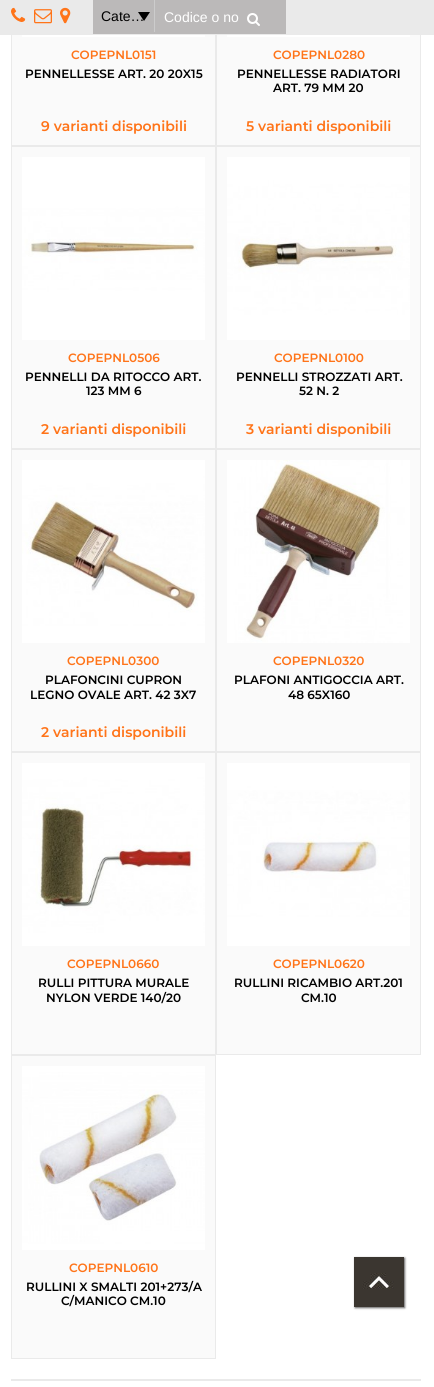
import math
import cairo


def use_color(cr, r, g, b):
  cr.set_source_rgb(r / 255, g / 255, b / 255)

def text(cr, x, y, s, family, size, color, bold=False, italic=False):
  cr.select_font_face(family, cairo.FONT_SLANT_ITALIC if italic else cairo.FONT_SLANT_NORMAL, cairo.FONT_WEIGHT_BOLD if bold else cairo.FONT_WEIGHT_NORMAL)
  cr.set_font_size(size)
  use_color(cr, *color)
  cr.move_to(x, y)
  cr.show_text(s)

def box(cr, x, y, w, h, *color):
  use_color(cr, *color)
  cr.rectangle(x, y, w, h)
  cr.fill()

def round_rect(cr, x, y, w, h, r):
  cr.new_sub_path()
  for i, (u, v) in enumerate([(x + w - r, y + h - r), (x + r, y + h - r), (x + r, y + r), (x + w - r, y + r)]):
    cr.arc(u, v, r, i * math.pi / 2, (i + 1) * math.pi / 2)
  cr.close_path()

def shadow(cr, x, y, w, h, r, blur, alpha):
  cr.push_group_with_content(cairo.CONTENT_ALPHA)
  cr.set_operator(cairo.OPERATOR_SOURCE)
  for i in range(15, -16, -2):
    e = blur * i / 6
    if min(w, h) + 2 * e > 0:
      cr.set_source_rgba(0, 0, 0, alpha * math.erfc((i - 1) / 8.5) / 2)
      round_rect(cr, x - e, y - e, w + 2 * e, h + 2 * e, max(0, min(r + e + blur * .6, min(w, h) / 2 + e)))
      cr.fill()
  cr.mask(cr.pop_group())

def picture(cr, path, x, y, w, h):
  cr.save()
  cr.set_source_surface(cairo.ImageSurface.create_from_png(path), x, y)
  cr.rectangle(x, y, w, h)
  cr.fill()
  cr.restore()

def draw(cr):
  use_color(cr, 255, 255, 255)
  cr.paint()
  box(cr, 12, 35, 203, 110, 250, 250, 250)
  cr.rectangle(11.5, -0.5, 204, 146)
  use_color(cr, 234, 234, 234)
  cr.set_line_width(1)
  cr.stroke()
  box(cr, 217, 35, 203, 110, 250, 250, 250)
  cr.rectangle(216.5, -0.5, 204, 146)
  use_color(cr, 234, 234, 234)
  cr.stroke()
  box(cr, 0, 0, 434, 35, 234, 234, 234)
  picture(cr, "img_01.png", 11, 7, 15, 15)
  picture(cr, "img_02.png", 34, 9, 18, 15)
  picture(cr, "img_03.png", 60, 7, 11, 17)
  box(cr, 93, 0, 193, 34, 187, 185, 185)
  picture(cr, "img_04.png", 138, 12, 12, 9)
  box(cr, 154, 0, 1, 32, 204, 204, 204)
  picture(cr, "img_05.png", 247, 13, 13, 13)
  box(cr, 22, 35, 183, 2, 255, 255, 255)
  box(cr, 227, 35, 183, 2, 255, 255, 255)
  use_color(cr, 250, 250, 250)
  cr.rectangle(11.5, 146.5, 204, 302)
  cr.fill_preserve()
  use_color(cr, 234, 234, 234)
  cr.stroke()
  picture(cr, "img_06.png", 22, 157, 183, 183)
  use_color(cr, 250, 250, 250)
  cr.rectangle(216.5, 146.5, 204, 302)
  cr.fill_preserve()
  use_color(cr, 234, 234, 234)
  cr.stroke()
  picture(cr, "img_07.png", 227, 157, 183, 183)
  use_color(cr, 250, 250, 250)
  cr.rectangle(11.5, 449.5, 204, 302)
  cr.fill_preserve()
  use_color(cr, 234, 234, 234)
  cr.stroke()
  picture(cr, "img_08.png", 22, 460, 183, 183)
  use_color(cr, 250, 250, 250)
  cr.rectangle(216.5, 449.5, 204, 302)
  cr.fill_preserve()
  use_color(cr, 234, 234, 234)
  cr.stroke()
  picture(cr, "img_09.png", 227, 460, 183, 183)
  use_color(cr, 250, 250, 250)
  cr.rectangle(11.5, 752.5, 204, 302)
  cr.fill_preserve()
  use_color(cr, 234, 234, 234)
  cr.stroke()
  picture(cr, "img_10.png", 22, 763, 183, 183)
  use_color(cr, 250, 250, 250)
  cr.rectangle(216.5, 752.5, 204, 302)
  cr.fill_preserve()
  use_color(cr, 234, 234, 234)
  cr.stroke()
  picture(cr, "img_11.png", 227, 763, 183, 183)
  use_color(cr, 250, 250, 250)
  cr.rectangle(11.5, 1055.5, 204, 303)
  cr.fill_preserve()
  use_color(cr, 234, 234, 234)
  cr.stroke()
  picture(cr, "img_12.png", 22, 1066, 183, 184)
  box(cr, 11, 1379, 410, 2, 234, 234, 234)
  use_color(cr, 50, 50, 50)
  shadow(cr, 355, 1258, 50, 50, 0, 1, 0.75)
  picture(cr, "img_13.png", 354, 1257, 50, 50)
  text(cr, 101, 21, "Cate…", "Liberation Sans", 14, (0, 0, 0))
  text(cr, 164, 22, "Codice o no", "Liberation Sans", 14, (255, 255, 255))
  text(cr, 71, 59, "COPEPNL0151", "Montserrat SemiBold", 12, (255, 116, 25))
  text(cr, 25, 78, "PENNELLESSE ART. 20 20X15", "Montserrat SemiBold", 12, (0, 0, 0))
  text(cr, 41, 131, "9 varianti disponibili", "Montserrat SemiBold", 14, (255, 116, 25))
  text(cr, 273, 59, "COPEPNL0280", "Montserrat SemiBold", 12, (255, 116, 25))
  text(cr, 237, 78, "PENNELLESSE RADIATORI", "Montserrat SemiBold", 12, (0, 0, 0))
  text(cr, 273, 92, "ART. 79 MM 20", "Montserrat SemiBold", 12, (0, 0, 0))
  text(cr, 246, 131, "5 varianti disponibili", "Montserrat SemiBold", 14, (255, 116, 25))
  text(cr, 68, 362, "COPEPNL0506", "Montserrat SemiBold", 12, (255, 116, 25))
  text(cr, 25, 381, "PENNELLI DA RITOCCO ART.", "Montserrat SemiBold", 12, (0, 0, 0))
  text(cr, 86, 395, "123 MM 6", "Montserrat SemiBold", 12, (0, 0, 0))
  text(cr, 41, 434, "2 varianti disponibili", "Montserrat SemiBold", 14, (255, 116, 25))
  text(cr, 274, 362, "COPEPNL0100", "Montserrat SemiBold", 12, (255, 116, 25))
  text(cr, 236, 381, "PENNELLI STROZZATI ART.", "Montserrat SemiBold", 12, (0, 0, 0))
  text(cr, 299, 395, "52 N. 2", "Montserrat SemiBold", 12, (0, 0, 0))
  text(cr, 246, 434, "3 varianti disponibili", "Montserrat SemiBold", 14, (255, 116, 25))
  text(cr, 67, 665, "COPEPNL0300", "Montserrat SemiBold", 12, (255, 116, 25))
  text(cr, 45, 684, "PLAFONCINI CUPRON", "Montserrat SemiBold", 12, (0, 0, 0))
  text(cr, 30, 699, "LEGNO OVALE ART. 42 3X7", "Montserrat SemiBold", 12, (0, 0, 0))
  text(cr, 41, 737, "2 varianti disponibili", "Montserrat SemiBold", 14, (255, 116, 25))
  text(cr, 273, 665, "COPEPNL0320", "Montserrat SemiBold", 12, (255, 116, 25))
  text(cr, 234, 684, "PLAFONI ANTIGOCCIA ART.", "Montserrat SemiBold", 12, (0, 0, 0))
  text(cr, 288, 699, "48 65X160", "Montserrat SemiBold", 12, (0, 0, 0))
  text(cr, 67, 968, "COPEPNL0660", "Montserrat SemiBold", 12, (255, 116, 25))
  text(cr, 38, 987, "RULLI PITTURA MURALE", "Montserrat SemiBold", 12, (0, 0, 0))
  text(cr, 46, 1002, "NYLON VERDE 140/20", "Montserrat SemiBold", 12, (0, 0, 0))
  text(cr, 273, 968, "COPEPNL0620", "Montserrat SemiBold", 12, (255, 116, 25))
  text(cr, 234, 987, "RULLINI RICAMBIO ART.201", "Montserrat SemiBold", 12, (0, 0, 0))
  text(cr, 301, 1002, "CM.10", "Montserrat SemiBold", 12, (0, 0, 0))
  text(cr, 69, 1272, "COPEPNL0610", "Montserrat SemiBold", 12, (255, 116, 25))
  text(cr, 26, 1291, "RULLINI X SMALTI 201+273/A", "Montserrat SemiBold", 12, (0, 0, 0))
  text(cr, 61, 1305, "C/MANICO CM.10", "Montserrat SemiBold", 12, (0, 0, 0))


surface = cairo.ImageSurface(cairo.FORMAT_RGB24, 434, 1387)
cr = cairo.Context(surface)
options = cairo.FontOptions()
options.set_hint_metrics(cairo.HINT_METRICS_OFF)
options.set_hint_style(cairo.HINT_STYLE_NONE)
cr.set_font_options(options)
cr.set_miter_limit(4)
draw(cr)
surface.write_to_png("out.png")
